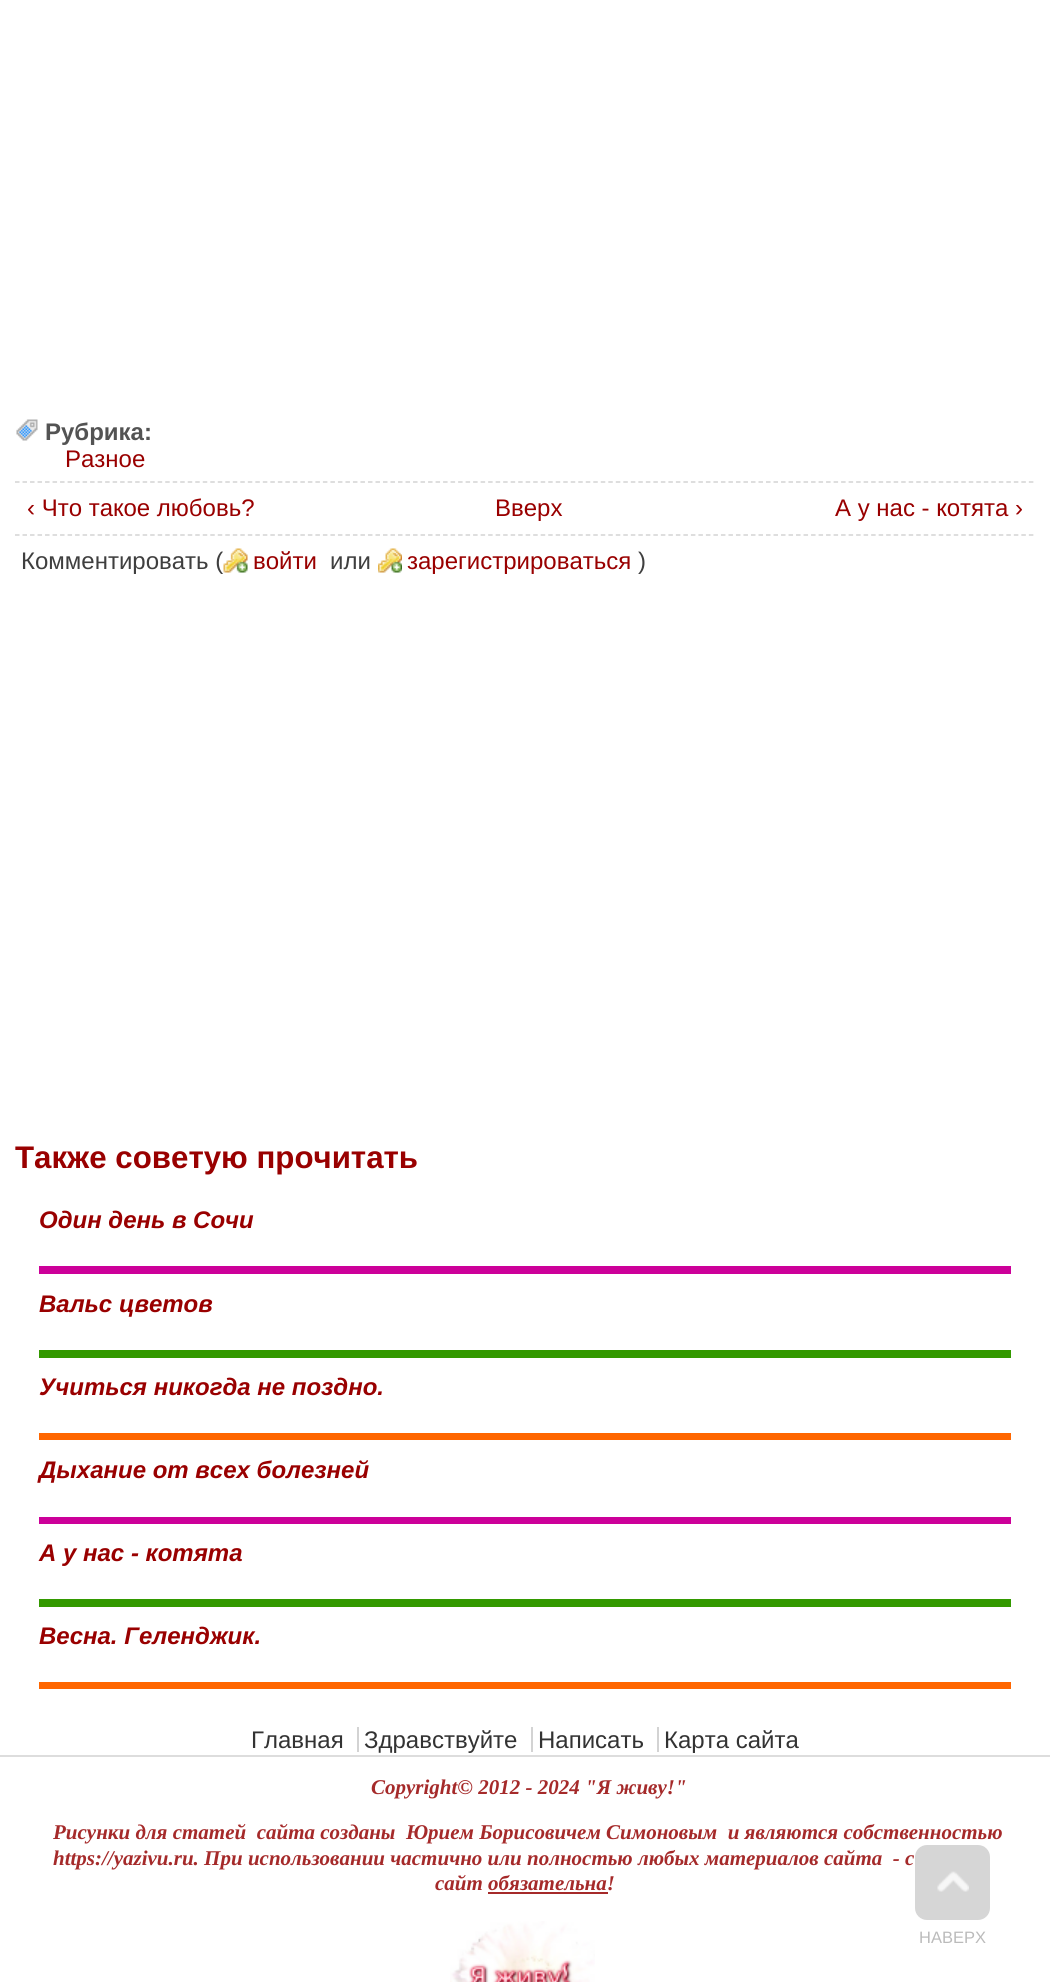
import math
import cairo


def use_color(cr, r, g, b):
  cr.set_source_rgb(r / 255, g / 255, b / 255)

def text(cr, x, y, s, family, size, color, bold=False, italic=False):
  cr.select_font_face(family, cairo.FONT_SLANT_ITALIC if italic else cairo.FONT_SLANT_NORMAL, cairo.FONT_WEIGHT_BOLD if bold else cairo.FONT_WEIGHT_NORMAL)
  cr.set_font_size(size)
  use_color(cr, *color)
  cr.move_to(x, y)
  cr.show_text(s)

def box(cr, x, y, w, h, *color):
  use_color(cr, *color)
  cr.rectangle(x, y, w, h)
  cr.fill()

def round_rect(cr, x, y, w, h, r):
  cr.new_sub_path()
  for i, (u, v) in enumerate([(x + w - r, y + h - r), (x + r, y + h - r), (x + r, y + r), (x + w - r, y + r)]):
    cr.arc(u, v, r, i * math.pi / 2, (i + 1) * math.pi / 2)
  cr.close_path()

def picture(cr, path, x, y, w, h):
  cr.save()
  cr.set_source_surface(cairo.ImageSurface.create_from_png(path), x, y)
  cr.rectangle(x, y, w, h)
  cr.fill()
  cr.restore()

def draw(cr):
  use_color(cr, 255, 255, 255)
  cr.paint()
  box(cr, 0, 1755, 1050, 2, 221, 221, 221)
  picture(cr, "img_01.png", 16, 419, 22, 22)
  cr.new_path()
  cr.move_to(15, 482)
  cr.line_to(1035, 482)
  use_color(cr, 211, 211, 211)
  cr.set_line_width(1.5)
  cr.set_dash([4.5, 3.01])
  cr.stroke()
  cr.new_path()
  cr.move_to(15, 535)
  cr.line_to(1035, 535)
  cr.stroke()
  picture(cr, "img_03.png", 378, 548, 24, 25)
  box(cr, 39, 1266, 972, 8, 204, 0, 153)
  box(cr, 39, 1350, 972, 8, 51, 153, 0)
  box(cr, 39, 1433, 972, 7, 255, 102, 0)
  box(cr, 39, 1517, 972, 7, 204, 0, 153)
  box(cr, 39, 1599, 972, 8, 51, 153, 0)
  box(cr, 39, 1682, 972, 7, 255, 102, 0)
  box(cr, 357, 1727, 2, 25, 211, 211, 211)
  box(cr, 531, 1727, 2, 25, 211, 211, 211)
  box(cr, 657, 1727, 2, 25, 211, 211, 211)
  box(cr, 488, 1892, 120, 2, 165, 42, 42)
  picture(cr, "img_04.png", 450, 1921, 145, 61)
  cr.set_source_rgba(0.8, 0.8, 0.8, 0.8)
  round_rect(cr, 915, 1845, 75, 75, 12)
  cr.fill()
  picture(cr, "img_05.png", 937, 1871, 32, 21)
  text(cr, 45, 440, "Рубрика:", "Liberation Sans", 24, (83, 83, 83), bold=True)
  text(cr, 65, 467, "Разное", "Liberation Sans", 24, (153, 0, 0))
  text(cr, 27, 516, "‹ Что такое любовь?", "Liberation Sans", 24, (153, 0, 0))
  text(cr, 495, 516, "Вверх", "Liberation Sans", 24, (153, 0, 0))
  text(cr, 835, 516, "А у нас - котята ›", "Liberation Sans", 24, (153, 0, 0))
  text(cr, 21, 569, "Комментировать (", "Liberation Sans", 24, (63, 63, 63))
  picture(cr, "img_02.png", 223, 548, 25, 25)
  text(cr, 253, 569, "войти", "Liberation Sans", 24, (153, 0, 0))
  text(cr, 330, 569, "или", "Liberation Sans", 24, (63, 63, 63))
  text(cr, 407, 569, "зарегистрироваться", "Liberation Sans", 24, (153, 0, 0))
  text(cr, 638, 569, ")", "Liberation Sans", 24, (63, 63, 63))
  text(cr, 15, 1168, "Также советую прочитать", "Liberation Sans", 31.25, (153, 0, 0), bold=True)
  text(cr, 39, 1228, "Один день в Сочи", "Liberation Sans", 24, (153, 0, 0), bold=True, italic=True)
  text(cr, 39, 1312, "Вальс цветов", "Liberation Sans", 24, (153, 0, 0), bold=True, italic=True)
  text(cr, 39, 1395, "Учиться никогда не поздно.", "Liberation Sans", 24, (153, 0, 0), bold=True, italic=True)
  text(cr, 39, 1478, "Дыхание от всех болезней", "Liberation Sans", 24, (153, 0, 0), bold=True, italic=True)
  text(cr, 39, 1561, "А у нас - котята", "Liberation Sans", 24, (153, 0, 0), bold=True, italic=True)
  text(cr, 39, 1644, "Весна. Геленджик.", "Liberation Sans", 24, (153, 0, 0), bold=True, italic=True)
  text(cr, 251, 1748, "Главная", "Liberation Sans", 24, (51, 51, 51))
  text(cr, 364, 1748, "Здравствуйте", "Liberation Sans", 24, (51, 51, 51))
  text(cr, 538, 1748, "Написать", "Liberation Sans", 24, (51, 51, 51))
  text(cr, 664, 1748, "Карта сайта", "Liberation Sans", 24, (51, 51, 51))
  text(cr, 371, 1794, "Copyright© 2012 - 2024 \"Я живу!\"", "Liberation Serif", 21, (165, 42, 42), bold=True, italic=True)
  text(cr, 53, 1839, "Рисунки для статей  сайта созданы  Юрием Борисовичем Симоновым  и являются собственностью", "Liberation Serif", 21, (165, 42, 42), bold=True, italic=True)
  text(cr, 53, 1865, "https://yazivu.ru. При использовании частично или полностью любых материалов сайта  - с", "Liberation Serif", 21, (165, 42, 42), bold=True, italic=True)
  text(cr, 435, 1890, "сайт обязательна!", "Liberation Serif", 21, (165, 42, 42), bold=True, italic=True)
  text(cr, 919, 1943, "НАВЕРХ", "Liberation Sans", 16.5, (187, 187, 187))


surface = cairo.ImageSurface(cairo.FORMAT_RGB24, 1050, 1982)
cr = cairo.Context(surface)
options = cairo.FontOptions()
options.set_hint_metrics(cairo.HINT_METRICS_OFF)
options.set_hint_style(cairo.HINT_STYLE_NONE)
cr.set_font_options(options)
cr.set_miter_limit(4)
draw(cr)
surface.write_to_png("out.png")
